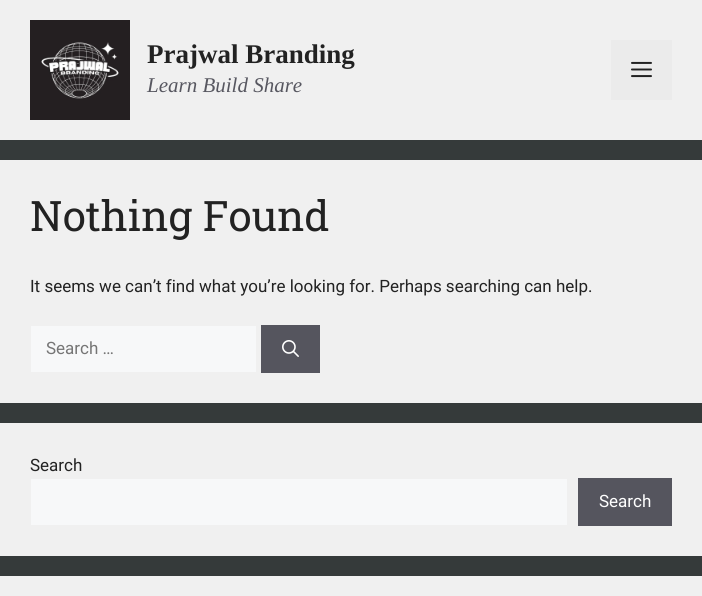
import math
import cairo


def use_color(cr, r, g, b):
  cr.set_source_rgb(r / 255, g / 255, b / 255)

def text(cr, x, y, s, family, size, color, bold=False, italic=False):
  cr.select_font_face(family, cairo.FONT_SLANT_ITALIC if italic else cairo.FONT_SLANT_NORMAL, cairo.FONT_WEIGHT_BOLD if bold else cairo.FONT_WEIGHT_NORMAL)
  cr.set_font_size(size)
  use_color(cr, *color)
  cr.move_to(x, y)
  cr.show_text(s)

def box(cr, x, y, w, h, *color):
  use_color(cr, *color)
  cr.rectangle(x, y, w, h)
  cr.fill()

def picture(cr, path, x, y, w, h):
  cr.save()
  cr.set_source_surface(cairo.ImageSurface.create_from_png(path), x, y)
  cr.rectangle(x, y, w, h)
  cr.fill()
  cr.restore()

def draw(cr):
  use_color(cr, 53, 58, 58)
  cr.paint()
  box(cr, 0, 0, 702, 140, 240, 240, 240)
  picture(cr, "img_01.png", 30, 20, 100, 100)
  box(cr, 611, 40, 61, 60, 235, 235, 235)
  picture(cr, "img_02.png", 631, 61, 21, 17)
  box(cr, 0, 160, 702, 243, 240, 240, 240)
  box(cr, 31, 326, 225, 46, 247, 248, 249)
  box(cr, 261, 325, 59, 48, 85, 85, 94)
  picture(cr, "img_03.png", 282, 340, 17, 17)
  box(cr, 0, 423, 702, 133, 240, 240, 240)
  box(cr, 31, 479, 536, 46, 247, 248, 249)
  box(cr, 578, 478, 94, 48, 85, 85, 94)
  box(cr, 0, 576, 702, 20, 240, 240, 240)
  text(cr, 147, 63, "Prajwal Branding", "Liberation Serif", 27, (34, 34, 34), bold=True)
  text(cr, 147, 92, "Learn Build Share", "Liberation Serif", 21, (87, 87, 96), italic=True)
  text(cr, 30, 231, "Nothing Found", "Roboto Slab", 42, (34, 34, 34))
  text(cr, 30, 292, "It seems we can’t find what you’re looking for. Perhaps searching can help.", "Roboto", 17, (34, 34, 34))
  text(cr, 46, 354, "Search …", "Roboto", 17, (117, 117, 117))
  text(cr, 30, 471, "Search", "Roboto", 17, (34, 34, 34))
  text(cr, 599, 507, "Search", "Roboto", 17, (255, 255, 255))


surface = cairo.ImageSurface(cairo.FORMAT_RGB24, 702, 596)
cr = cairo.Context(surface)
options = cairo.FontOptions()
options.set_hint_metrics(cairo.HINT_METRICS_OFF)
options.set_hint_style(cairo.HINT_STYLE_NONE)
cr.set_font_options(options)
cr.set_miter_limit(4)
draw(cr)
surface.write_to_png("out.png")
